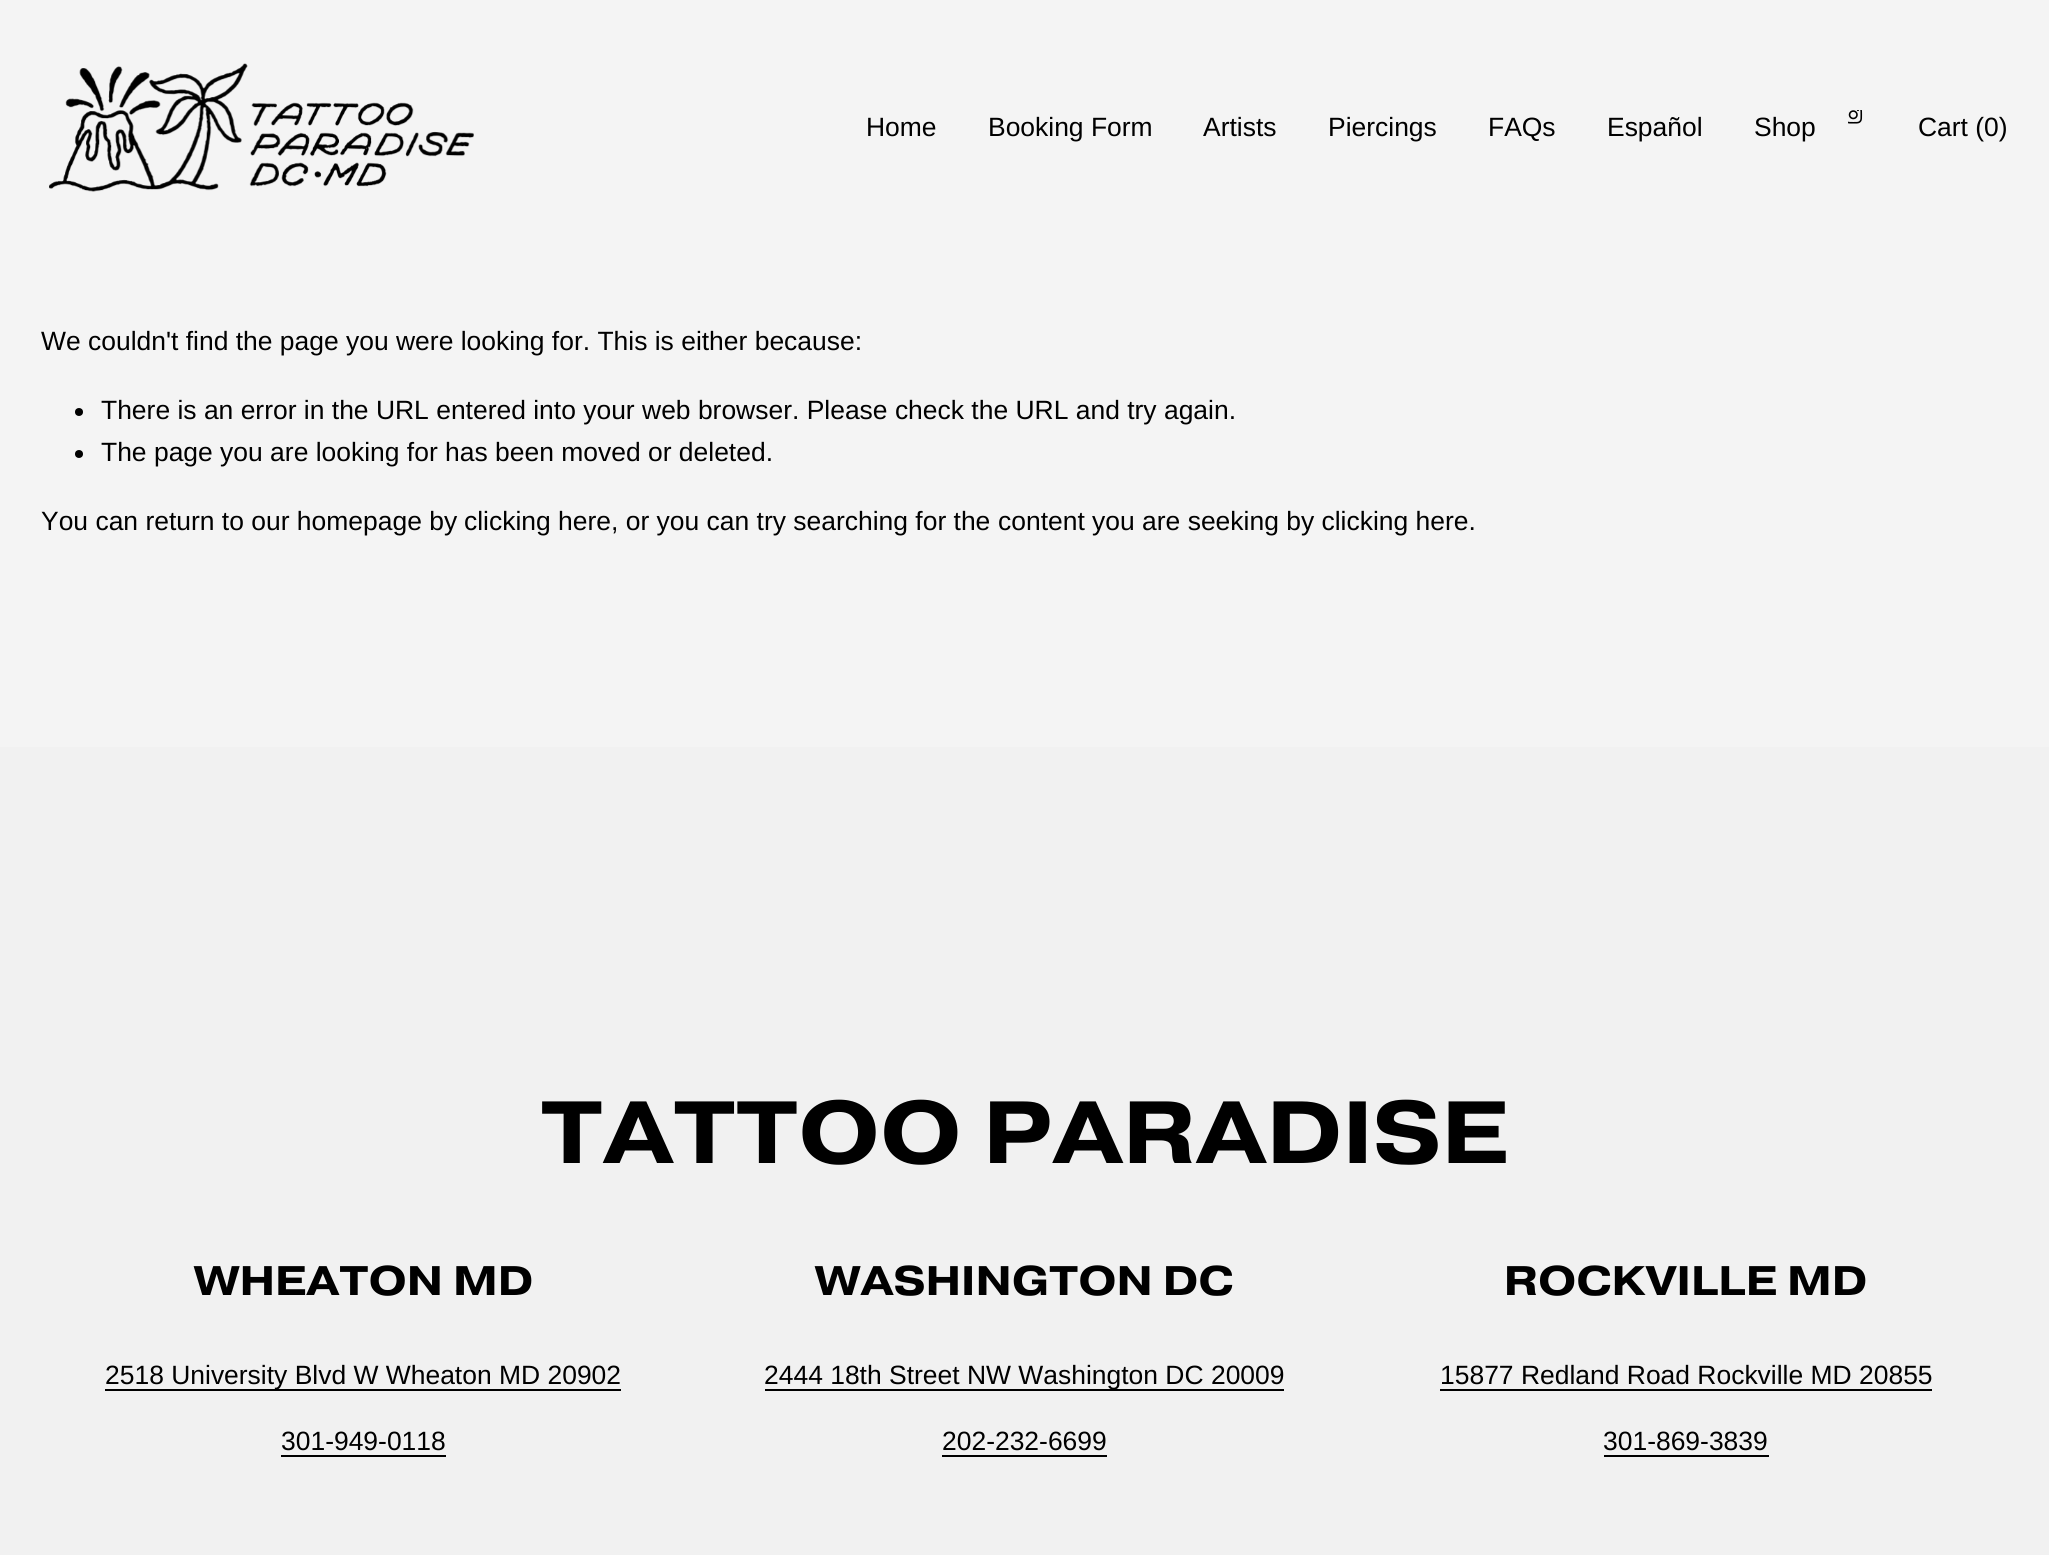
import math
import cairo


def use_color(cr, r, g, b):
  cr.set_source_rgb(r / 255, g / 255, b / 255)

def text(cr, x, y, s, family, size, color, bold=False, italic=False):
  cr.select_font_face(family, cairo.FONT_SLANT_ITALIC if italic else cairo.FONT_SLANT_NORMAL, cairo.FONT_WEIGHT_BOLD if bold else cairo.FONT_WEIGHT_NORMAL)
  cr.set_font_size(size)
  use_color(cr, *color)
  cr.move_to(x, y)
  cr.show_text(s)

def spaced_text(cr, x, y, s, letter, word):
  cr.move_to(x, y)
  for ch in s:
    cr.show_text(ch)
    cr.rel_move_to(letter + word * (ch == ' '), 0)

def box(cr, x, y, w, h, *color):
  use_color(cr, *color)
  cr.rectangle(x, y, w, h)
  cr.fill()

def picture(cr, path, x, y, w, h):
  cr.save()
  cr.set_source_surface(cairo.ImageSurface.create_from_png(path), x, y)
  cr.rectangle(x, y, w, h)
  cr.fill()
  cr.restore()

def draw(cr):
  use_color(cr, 244, 244, 244)
  cr.paint()
  picture(cr, "img_01.png", 49, 63, 425, 129)
  picture(cr, "img_02.png", 1848, 110, 15, 14)
  use_color(cr, 0, 0, 0)
  cr.arc(79, 412, 4, 0, 2 * math.pi)
  cr.fill()
  cr.arc(79, 454, 4, 0, 2 * math.pi)
  cr.fill()
  box(cr, 0, 747, 2049, 808, 241, 241, 241)
  box(cr, 105, 1389, 516, 2, 0, 0, 0)
  box(cr, 281, 1455, 165, 2, 0, 0, 0)
  box(cr, 765, 1389, 519, 2, 0, 0, 0)
  box(cr, 942, 1455, 165, 2, 0, 0, 0)
  box(cr, 1440, 1389, 492, 2, 0, 0, 0)
  box(cr, 1604, 1455, 165, 2, 0, 0, 0)
  text(cr, 866, 136, "Home", "Liberation Sans", 26.45, (0, 0, 0))
  text(cr, 988, 136, "Booking Form", "Liberation Sans", 26.45, (0, 0, 0))
  text(cr, 1203, 136, "Artists", "Liberation Sans", 26.45, (0, 0, 0))
  text(cr, 1328, 136, "Piercings", "Liberation Sans", 26.45, (0, 0, 0))
  text(cr, 1488, 136, "FAQs", "Liberation Sans", 26.45, (0, 0, 0))
  text(cr, 1607, 136, "Español", "Liberation Sans", 26.45, (0, 0, 0))
  text(cr, 1754, 136, "Shop", "Liberation Sans", 26.45, (0, 0, 0))
  text(cr, 1918, 136, "Cart (0)", "Liberation Sans", 26.45, (0, 0, 0))
  text(cr, 41, 350, "We couldn't find the page you were looking for. This is either because:", "Liberation Sans", 26.45, (0, 0, 0))
  text(cr, 101, 419, "There is an error in the URL entered into your web browser. Please check the URL and try again.", "Liberation Sans", 26.45, (0, 0, 0))
  text(cr, 101, 461, "The page you are looking for has been moved or deleted.", "Liberation Sans", 26.45, (0, 0, 0))
  text(cr, 41, 530, "You can return to our homepage by", "Liberation Sans", 26.45, (0, 0, 0))
  text(cr, 464, 530, "clicking here, or you can try searching for the", "Liberation Sans", 26.45, (0, 0, 0))
  text(cr, 998, 530, "content you are seeking by clicking here.", "Liberation Sans", 26.45, (0, 0, 0))
  cr.select_font_face("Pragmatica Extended", cairo.FONT_SLANT_NORMAL, cairo.FONT_WEIGHT_BOLD)
  cr.set_font_size(88)
  spaced_text(cr, 541, 1163, "TATTOO PARADISE", 0.9, 0)
  cr.set_font_size(41.25)
  spaced_text(cr, 194, 1295, "WHEATON MD", 0.4, 0)
  text(cr, 105, 1384, "2518 University Blvd W Wheaton MD 20902", "Liberation Sans", 26.45, (0, 0, 0))
  text(cr, 281, 1450, "301-949-0118", "Liberation Sans", 26.45, (0, 0, 0))
  cr.select_font_face("Pragmatica Extended", cairo.FONT_SLANT_NORMAL, cairo.FONT_WEIGHT_BOLD)
  cr.set_font_size(41.25)
  spaced_text(cr, 815, 1295, "WASHINGTON DC", 0.4, 0)
  text(cr, 764, 1384, "2444 18th Street NW Washington DC 20009", "Liberation Sans", 26.45, (0, 0, 0))
  text(cr, 942, 1450, "202-232-6699", "Liberation Sans", 26.45, (0, 0, 0))
  cr.select_font_face("Pragmatica Extended", cairo.FONT_SLANT_NORMAL, cairo.FONT_WEIGHT_BOLD)
  cr.set_font_size(41.25)
  spaced_text(cr, 1504, 1295, "ROCKVILLE MD", 0.4, 0)
  text(cr, 1440, 1384, "15877 Redland Road Rockville MD 20855", "Liberation Sans", 26.45, (0, 0, 0))
  text(cr, 1603, 1450, "301-869-3839", "Liberation Sans", 26.45, (0, 0, 0))


surface = cairo.ImageSurface(cairo.FORMAT_RGB24, 2049, 1555)
cr = cairo.Context(surface)
options = cairo.FontOptions()
options.set_hint_metrics(cairo.HINT_METRICS_OFF)
options.set_hint_style(cairo.HINT_STYLE_NONE)
cr.set_font_options(options)
cr.set_miter_limit(4)
draw(cr)
surface.write_to_png("out.png")
